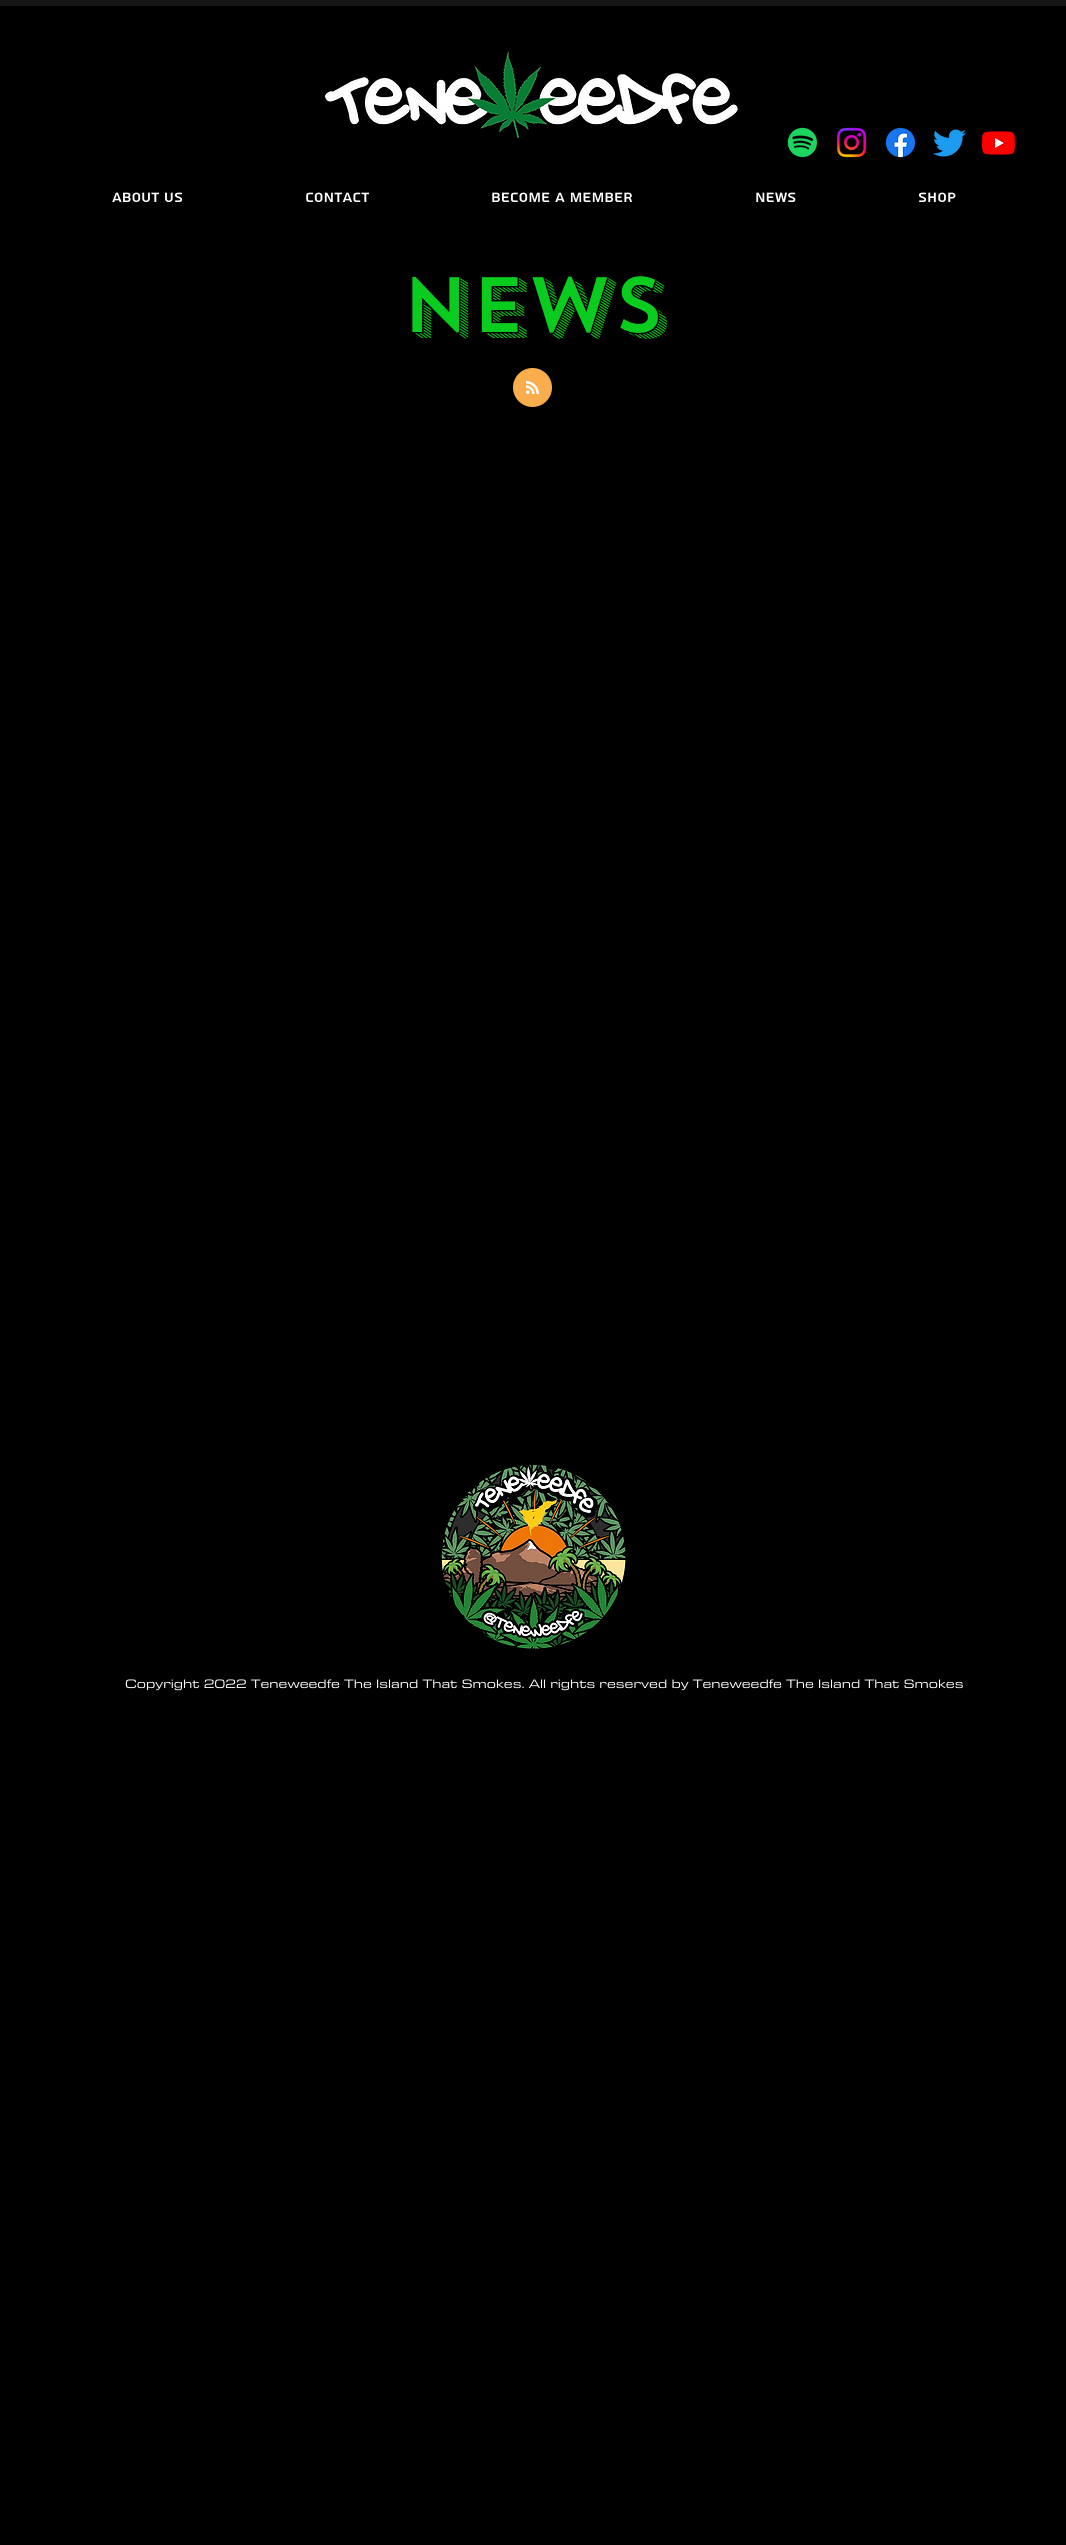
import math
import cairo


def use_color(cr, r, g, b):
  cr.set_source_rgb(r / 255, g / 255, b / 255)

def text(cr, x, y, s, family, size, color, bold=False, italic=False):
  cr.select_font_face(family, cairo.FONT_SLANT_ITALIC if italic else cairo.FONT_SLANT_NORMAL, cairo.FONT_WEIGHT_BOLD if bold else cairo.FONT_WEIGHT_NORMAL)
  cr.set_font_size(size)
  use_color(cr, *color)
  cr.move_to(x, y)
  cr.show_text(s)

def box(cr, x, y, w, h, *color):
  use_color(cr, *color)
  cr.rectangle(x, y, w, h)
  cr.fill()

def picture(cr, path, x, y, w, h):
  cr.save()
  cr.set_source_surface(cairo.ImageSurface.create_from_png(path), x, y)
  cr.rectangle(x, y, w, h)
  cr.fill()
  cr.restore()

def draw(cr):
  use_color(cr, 0, 0, 0)
  cr.paint()
  box(cr, 0, 0, 1066, 6, 21, 21, 21)
  picture(cr, "img_01.png", 325, 51, 413, 87)
  picture(cr, "img_02.png", 787, 127, 31, 31)
  picture(cr, "img_03.png", 836, 127, 31, 31)
  picture(cr, "img_04.png", 885, 127, 31, 31)
  picture(cr, "img_05.png", 933, 129, 33, 28)
  picture(cr, "img_06.png", 981, 131, 35, 24)
  picture(cr, "img_07.png", 513, 368, 39, 39)
  picture(cr, "img_08.png", 441, 1464, 185, 185)
  text(cr, 112, 202, "ABOUT US", "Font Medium", 18, (255, 255, 254))
  text(cr, 305, 202, "CONTACT", "Font Medium", 18, (255, 255, 254))
  text(cr, 491, 202, "Become A Member", "Font Medium", 18, (255, 255, 254))
  text(cr, 755, 202, "News", "Font Medium", 18, (255, 255, 254))
  text(cr, 918, 202, "Shop", "Font Medium", 18, (255, 255, 254))
  text(cr, 401, 332, "NEWS", "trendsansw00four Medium", 78, (10, 204, 30))
  text(cr, 125, 1688, "Copyright 2022 Teneweedfe The Island That Smokes. All rights reserved by Teneweedfe The Island That Smokes", "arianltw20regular", 15, (255, 255, 254))


surface = cairo.ImageSurface(cairo.FORMAT_RGB24, 1066, 2545)
cr = cairo.Context(surface)
options = cairo.FontOptions()
options.set_hint_metrics(cairo.HINT_METRICS_OFF)
options.set_hint_style(cairo.HINT_STYLE_NONE)
cr.set_font_options(options)
cr.set_miter_limit(4)
draw(cr)
surface.write_to_png("out.png")
